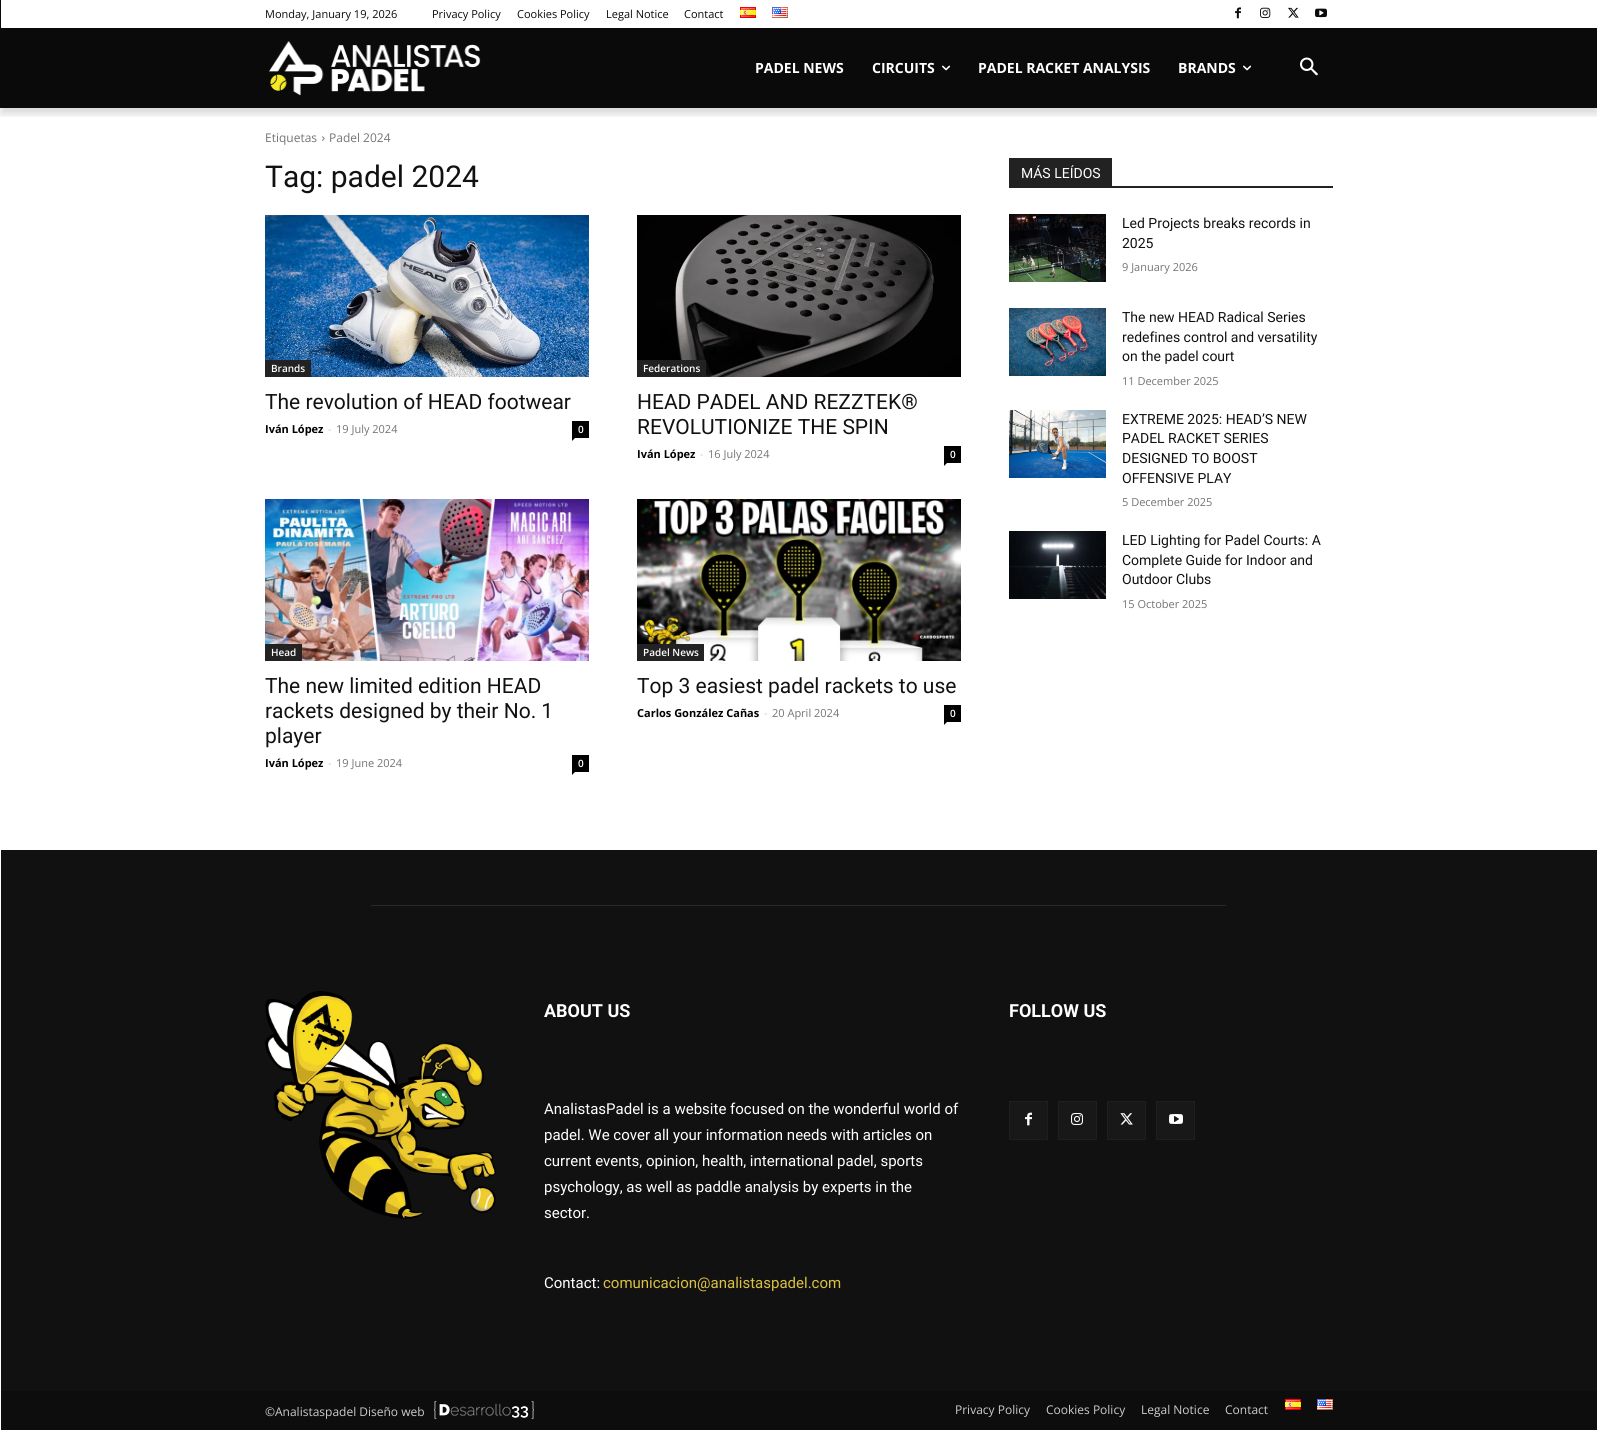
import math
import cairo


def use_color(cr, r, g, b):
  cr.set_source_rgb(r / 255, g / 255, b / 255)

def text(cr, x, y, s, family, size, color, bold=False, italic=False):
  cr.select_font_face(family, cairo.FONT_SLANT_ITALIC if italic else cairo.FONT_SLANT_NORMAL, cairo.FONT_WEIGHT_BOLD if bold else cairo.FONT_WEIGHT_NORMAL)
  cr.set_font_size(size)
  use_color(cr, *color)
  cr.move_to(x, y)
  cr.show_text(s)

def box(cr, x, y, w, h, *color):
  use_color(cr, *color)
  cr.rectangle(x, y, w, h)
  cr.fill()

def round_rect(cr, x, y, w, h, r):
  cr.new_sub_path()
  for i, (u, v) in enumerate([(x + w - r, y + h - r), (x + r, y + h - r), (x + r, y + r), (x + w - r, y + r)]):
    cr.arc(u, v, r, i * math.pi / 2, (i + 1) * math.pi / 2)
  cr.close_path()

def shadow(cr, x, y, w, h, r, blur, alpha):
  cr.push_group_with_content(cairo.CONTENT_ALPHA)
  cr.set_operator(cairo.OPERATOR_SOURCE)
  for i in range(15, -16, -2):
    e = blur * i / 6
    if min(w, h) + 2 * e > 0:
      cr.set_source_rgba(0, 0, 0, alpha * math.erfc((i - 1) / 8.5) / 2)
      round_rect(cr, x - e, y - e, w + 2 * e, h + 2 * e, max(0, min(r + e + blur * .6, min(w, h) / 2 + e)))
      cr.fill()
  cr.mask(cr.pop_group())

def picture(cr, path, x, y, w, h):
  cr.save()
  cr.set_source_surface(cairo.ImageSurface.create_from_png(path), x, y)
  cr.rectangle(x, y, w, h)
  cr.fill()
  cr.restore()

def draw(cr):
  use_color(cr, 255, 255, 255)
  cr.paint()
  box(cr, 0, 0, 1597, 108, 10, 10, 10)
  box(cr, 1, 0, 1596, 28, 255, 255, 255)
  picture(cr, "img_03.png", 1235, 7, 6, 12)
  picture(cr, "img_04.png", 1260, 7, 11, 11)
  picture(cr, "img_05.png", 1288, 7, 11, 11)
  picture(cr, "img_06.png", 1315, 8, 12, 10)
  picture(cr, "img_07.png", 269, 41, 212, 55)
  cr.save()
  cr.rectangle(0, 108, 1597, 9)
  cr.clip()
  use_color(cr, 0, 0, 0)
  shadow(cr, 1, 6, 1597, 108, 0, 4, 0.08)
  cr.restore()
  picture(cr, "img_01.png", 740, 7, 16, 11)
  picture(cr, "img_02.png", 772, 7, 16, 11)
  cr.save()
  cr.rectangle(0, 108, 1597, 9)
  cr.clip()
  use_color(cr, 0, 0, 0)
  shadow(cr, 1, 34, 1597, 80, 0, 4, 0.08)
  cr.restore()
  picture(cr, "img_08.png", 942, 65, 9, 6)
  picture(cr, "img_08.png", 1243, 65, 9, 6)
  picture(cr, "img_09.png", 1300, 57, 18, 19)
  picture(cr, "img_10.png", 322, 136, 3, 5)
  picture(cr, "img_11.png", 265, 215, 324, 162)
  box(cr, 265, 360, 46, 17, 34, 34, 34)
  box(cr, 572, 421, 17, 17, 0, 0, 0)
  cr.new_path()
  cr.move_to(572, 438)
  cr.line_to(575, 438)
  cr.line_to(572, 441)
  cr.close_path()
  cr.fill()
  picture(cr, "img_12.png", 637, 215, 324, 162)
  box(cr, 637, 360, 69, 17, 34, 34, 34)
  box(cr, 944, 446, 17, 17, 0, 0, 0)
  cr.new_path()
  cr.move_to(944, 463)
  cr.line_to(947, 463)
  cr.line_to(944, 466)
  cr.close_path()
  cr.fill()
  picture(cr, "img_13.png", 265, 499, 324, 162)
  box(cr, 265, 644, 37, 17, 34, 34, 34)
  box(cr, 572, 755, 17, 17, 0, 0, 0)
  cr.new_path()
  cr.move_to(572, 772)
  cr.line_to(575, 772)
  cr.line_to(572, 775)
  cr.close_path()
  cr.fill()
  picture(cr, "img_14.png", 637, 499, 324, 162)
  box(cr, 637, 644, 67, 17, 34, 34, 34)
  box(cr, 944, 705, 17, 17, 0, 0, 0)
  cr.new_path()
  cr.move_to(944, 722)
  cr.line_to(947, 722)
  cr.line_to(944, 725)
  cr.close_path()
  cr.fill()
  box(cr, 1009, 186, 324, 2, 34, 34, 34)
  box(cr, 1009, 158, 103, 28, 34, 34, 34)
  picture(cr, "img_15.png", 1009, 214, 97, 68)
  picture(cr, "img_16.png", 1009, 308, 97, 68)
  picture(cr, "img_17.png", 1009, 410, 97, 68)
  picture(cr, "img_18.png", 1009, 531, 97, 68)
  box(cr, 1, 850, 1596, 541, 17, 17, 17)
  box(cr, 371, 905, 855, 1, 41, 41, 41)
  picture(cr, "img_19.png", 265, 991, 231, 228)
  use_color(cr, 24, 24, 24)
  cr.rectangle(1009.5, 1101.5, 38, 38)
  cr.fill_preserve()
  use_color(cr, 31, 31, 31)
  cr.set_line_width(1)
  cr.stroke()
  picture(cr, "img_20.png", 1025, 1112, 7, 14)
  use_color(cr, 24, 24, 24)
  cr.rectangle(1058.5, 1101.5, 38, 38)
  cr.fill_preserve()
  use_color(cr, 31, 31, 31)
  cr.stroke()
  picture(cr, "img_21.png", 1071, 1113, 12, 12)
  use_color(cr, 24, 24, 24)
  cr.rectangle(1107.5, 1101.5, 38, 38)
  cr.fill_preserve()
  use_color(cr, 31, 31, 31)
  cr.stroke()
  picture(cr, "img_22.png", 1120, 1113, 13, 12)
  use_color(cr, 24, 24, 24)
  cr.rectangle(1156.5, 1101.5, 38, 38)
  cr.fill_preserve()
  use_color(cr, 31, 31, 31)
  cr.stroke()
  picture(cr, "img_23.png", 1169, 1114, 14, 10)
  box(cr, 1, 1391, 1596, 39, 13, 13, 13)
  picture(cr, "img_24.png", 434, 1401, 100, 18)
  picture(cr, "img_01.png", 1285, 1399, 16, 11)
  picture(cr, "img_02.png", 1317, 1399, 16, 11)
  text(cr, 265, 18, "Monday, January 19, 2026", "Open Sans", 11, (10, 10, 10))
  text(cr, 432, 18, "Privacy Policy", "Open Sans", 11, (10, 10, 10))
  text(cr, 517, 18, "Cookies Policy", "Open Sans", 11, (10, 10, 10))
  text(cr, 606, 18, "Legal Notice", "Open Sans", 11, (10, 10, 10))
  text(cr, 684, 18, "Contact", "Open Sans", 11, (10, 10, 10))
  text(cr, 755, 73, "PADEL NEWS", "Open Sans", 14, (255, 255, 255), bold=True)
  text(cr, 872, 73, "CIRCUITS", "Open Sans", 14, (255, 255, 255), bold=True)
  text(cr, 978, 73, "PADEL RACKET ANALYSIS", "Open Sans", 14, (255, 255, 255), bold=True)
  text(cr, 1178, 73, "BRANDS", "Open Sans", 14, (255, 255, 255), bold=True)
  text(cr, 265, 142, "Etiquetas", "Open Sans", 12, (116, 116, 116))
  text(cr, 329, 142, "Padel 2024", "Open Sans", 12, (116, 116, 116))
  text(cr, 265, 187, "Tag: padel 2024", "Roboto", 30, (17, 17, 17))
  text(cr, 271, 372, "Brands", "Open Sans SemiBold", 10, (255, 255, 255))
  text(cr, 265, 409, "The revolution of HEAD footwear", "Roboto", 21, (17, 17, 17))
  text(cr, 265, 433, "Iván López", "Open Sans", 11, (0, 0, 0), bold=True)
  text(cr, 328, 433, "-", "Open Sans", 11, (204, 204, 204))
  text(cr, 336, 433, "19 July 2024", "Open Sans", 11, (116, 116, 116))
  text(cr, 578, 433, "0", "Open Sans SemiBold", 10, (255, 255, 255))
  text(cr, 643, 372, "Federations", "Open Sans SemiBold", 10, (255, 255, 255))
  text(cr, 637, 409, "HEAD PADEL AND REZZTEK®", "Roboto", 21, (17, 17, 17))
  text(cr, 637, 434, "REVOLUTIONIZE THE SPIN", "Roboto", 21, (17, 17, 17))
  text(cr, 637, 458, "Iván López", "Open Sans", 11, (0, 0, 0), bold=True)
  text(cr, 700, 458, "-", "Open Sans", 11, (204, 204, 204))
  text(cr, 708, 458, "16 July 2024", "Open Sans", 11, (116, 116, 116))
  text(cr, 950, 458, "0", "Open Sans SemiBold", 10, (255, 255, 255))
  text(cr, 271, 656, "Head", "Open Sans SemiBold", 10, (255, 255, 255))
  text(cr, 265, 693, "The new limited edition HEAD", "Roboto", 21, (17, 17, 17))
  text(cr, 265, 718, "rackets designed by their No. 1", "Roboto", 21, (17, 17, 17))
  text(cr, 265, 743, "player", "Roboto", 21, (17, 17, 17))
  text(cr, 265, 767, "Iván López", "Open Sans", 11, (0, 0, 0), bold=True)
  text(cr, 328, 767, "-", "Open Sans", 11, (204, 204, 204))
  text(cr, 336, 767, "19 June 2024", "Open Sans", 11, (116, 116, 116))
  text(cr, 578, 767, "0", "Open Sans SemiBold", 10, (255, 255, 255))
  text(cr, 643, 656, "Padel News", "Open Sans SemiBold", 10, (255, 255, 255))
  text(cr, 637, 693, "Top 3 easiest padel rackets to use", "Roboto", 21, (17, 17, 17))
  text(cr, 637, 717, "Carlos González Cañas", "Open Sans", 11, (0, 0, 0), bold=True)
  text(cr, 764, 717, "-", "Open Sans", 11, (204, 204, 204))
  text(cr, 772, 717, "20 April 2024", "Open Sans", 11, (116, 116, 116))
  text(cr, 950, 717, "0", "Open Sans SemiBold", 10, (255, 255, 255))
  text(cr, 1021, 178, "MÁS LEÍDOS", "Roboto", 14, (255, 255, 255))
  text(cr, 1122, 228, "Led Projects breaks records in", "Roboto", 14, (17, 17, 17))
  text(cr, 1122, 248, "2025", "Roboto", 14, (17, 17, 17))
  text(cr, 1122, 271, "9 January 2026", "Open Sans", 11, (116, 116, 116))
  text(cr, 1122, 322, "The new HEAD Radical Series", "Roboto", 14, (17, 17, 17))
  text(cr, 1122, 342, "redefines control and versatility", "Roboto", 14, (17, 17, 17))
  text(cr, 1122, 361, "on the padel court", "Roboto", 14, (17, 17, 17))
  text(cr, 1122, 385, "11 December 2025", "Open Sans", 11, (116, 116, 116))
  text(cr, 1122, 424, "EXTREME 2025: HEAD’S NEW", "Roboto", 14, (17, 17, 17))
  text(cr, 1122, 443, "PADEL RACKET SERIES", "Roboto", 14, (17, 17, 17))
  text(cr, 1122, 463, "DESIGNED TO BOOST", "Roboto", 14, (17, 17, 17))
  text(cr, 1122, 483, "OFFENSIVE PLAY", "Roboto", 14, (17, 17, 17))
  text(cr, 1122, 506, "5 December 2025", "Open Sans", 11, (116, 116, 116))
  text(cr, 1122, 545, "LED Lighting for Padel Courts: A", "Roboto", 14, (17, 17, 17))
  text(cr, 1122, 565, "Complete Guide for Indoor and", "Roboto", 14, (17, 17, 17))
  text(cr, 1122, 584, "Outdoor Clubs", "Roboto", 14, (17, 17, 17))
  text(cr, 1122, 608, "15 October 2025", "Open Sans", 11, (116, 116, 116))
  text(cr, 544, 1017, "ABOUT US", "Roboto", 18, (255, 255, 255), bold=True)
  text(cr, 544, 1114, "AnalistasPadel is a website focused on the wonderful world of", "Roboto", 15, (255, 255, 255))
  text(cr, 544, 1140, "padel. We cover all your information needs with articles on", "Roboto", 15, (255, 255, 255))
  text(cr, 544, 1166, "current events, opinion, health, international padel, sports", "Roboto", 15, (255, 255, 255))
  text(cr, 544, 1192, "psychology, as well as paddle analysis by experts in the", "Roboto", 15, (255, 255, 255))
  text(cr, 544, 1218, "sector.", "Roboto", 15, (255, 255, 255))
  text(cr, 544, 1288, "Contact:", "Roboto", 15, (255, 255, 255))
  text(cr, 603, 1288, "comunicacion@analistaspadel.com", "Roboto", 15, (219, 193, 65))
  text(cr, 1009, 1017, "FOLLOW US", "Roboto", 18, (255, 255, 255), bold=True)
  text(cr, 265, 1416, "©Analistaspadel Diseño web", "Open Sans", 12, (204, 204, 204))
  text(cr, 955, 1414, "Privacy Policy", "Open Sans", 12, (204, 204, 204))
  text(cr, 1046, 1414, "Cookies Policy", "Open Sans", 12, (204, 204, 204))
  text(cr, 1141, 1414, "Legal Notice", "Open Sans", 12, (204, 204, 204))
  text(cr, 1225, 1414, "Contact", "Open Sans", 12, (204, 204, 204))


surface = cairo.ImageSurface(cairo.FORMAT_RGB24, 1597, 1434)
cr = cairo.Context(surface)
options = cairo.FontOptions()
options.set_hint_metrics(cairo.HINT_METRICS_OFF)
options.set_hint_style(cairo.HINT_STYLE_NONE)
cr.set_font_options(options)
cr.set_miter_limit(4)
draw(cr)
surface.write_to_png("out.png")
